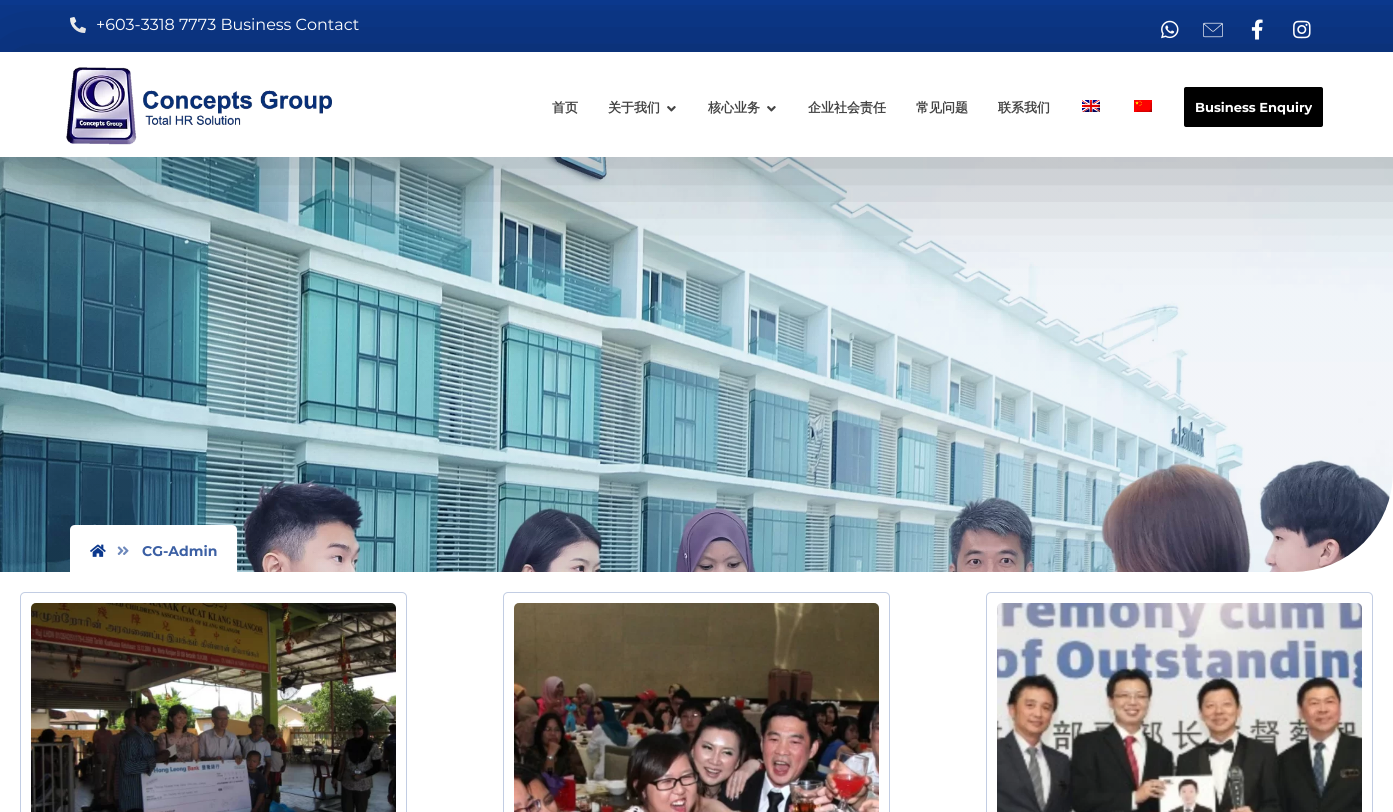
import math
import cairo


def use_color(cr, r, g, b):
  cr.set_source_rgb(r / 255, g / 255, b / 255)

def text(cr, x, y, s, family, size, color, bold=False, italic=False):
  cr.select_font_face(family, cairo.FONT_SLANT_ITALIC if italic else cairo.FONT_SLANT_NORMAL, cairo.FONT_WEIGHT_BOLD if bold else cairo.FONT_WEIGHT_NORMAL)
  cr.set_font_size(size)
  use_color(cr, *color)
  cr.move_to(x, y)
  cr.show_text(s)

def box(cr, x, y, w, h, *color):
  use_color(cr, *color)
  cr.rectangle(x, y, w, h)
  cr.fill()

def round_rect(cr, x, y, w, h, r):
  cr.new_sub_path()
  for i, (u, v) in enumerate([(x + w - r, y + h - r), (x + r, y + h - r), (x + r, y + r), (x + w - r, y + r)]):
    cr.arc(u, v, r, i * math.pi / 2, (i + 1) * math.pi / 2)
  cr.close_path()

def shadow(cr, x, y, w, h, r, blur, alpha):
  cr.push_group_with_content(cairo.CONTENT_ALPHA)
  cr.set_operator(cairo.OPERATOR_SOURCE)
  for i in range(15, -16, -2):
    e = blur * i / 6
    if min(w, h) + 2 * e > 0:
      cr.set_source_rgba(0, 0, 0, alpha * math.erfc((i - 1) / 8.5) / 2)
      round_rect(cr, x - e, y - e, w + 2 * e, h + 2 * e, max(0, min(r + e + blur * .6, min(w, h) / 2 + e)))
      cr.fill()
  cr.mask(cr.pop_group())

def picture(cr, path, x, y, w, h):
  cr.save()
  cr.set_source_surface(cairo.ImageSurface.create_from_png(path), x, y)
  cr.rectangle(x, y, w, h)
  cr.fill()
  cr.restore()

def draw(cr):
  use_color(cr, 255, 255, 255)
  cr.paint()
  box(cr, 0, 0, 1393, 52, 11, 56, 141)
  picture(cr, "img_01.png", 70, 17, 16, 16)
  picture(cr, "img_10.png", 0, 157, 1393, 415)
  cr.save()
  cr.rectangle(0, 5, 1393, 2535)
  cr.clip()
  use_color(cr, 12, 12, 12)
  shadow(cr, 5, 52, 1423, 125, 0, 50, 0.3)
  cr.restore()
  picture(cr, "img_02.png", 1161, 20, 18, 19)
  picture(cr, "img_03.png", 1203, 22, 20, 16)
  picture(cr, "img_04.png", 1251, 19, 12, 21)
  picture(cr, "img_05.png", 1293, 20, 18, 19)
  box(cr, 0, 52, 1393, 105, 255, 255, 255)
  picture(cr, "img_06.png", 66, 67, 266, 78)
  picture(cr, "img_07.png", 667, 106, 9, 6)
  picture(cr, "img_07.png", 767, 106, 9, 6)
  picture(cr, "img_08.png", 1082, 100, 18, 12)
  picture(cr, "img_09.png", 1134, 100, 18, 12)
  use_color(cr, 0, 0, 0)
  round_rect(cr, 1184, 87, 139, 40, 2)
  cr.fill()
  use_color(cr, 255, 255, 255)
  cr.new_path()
  cr.move_to(75, 525)
  cr.line_to(232, 525)
  cr.curve_to(235, 525, 237, 527, 237, 530)
  cr.line_to(237, 572)
  cr.line_to(70, 572)
  cr.line_to(70, 530)
  cr.curve_to(70, 527, 72, 525, 75, 525)
  cr.close_path()
  cr.fill()
  picture(cr, "img_11.png", 90, 544, 16, 13)
  picture(cr, "img_12.png", 117, 546, 12, 9)
  round_rect(cr, 20.5, 592.5, 386, 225, 4.5)
  use_color(cr, 194, 205, 227)
  cr.set_line_width(1)
  cr.stroke()
  picture(cr, "img_13.png", 31, 603, 365, 209)
  round_rect(cr, 503.5, 592.5, 386, 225, 4.5)
  cr.stroke()
  picture(cr, "img_14.png", 514, 603, 365, 209)
  round_rect(cr, 986.5, 592.5, 386, 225, 4.5)
  cr.stroke()
  picture(cr, "img_15.png", 997, 603, 365, 209)
  text(cr, 96, 30, "+603-3318 7773 Business Contact", "Montserrat", 16, (255, 255, 255))
  text(cr, 552, 112, "首页", "WenQuanYi Zen Hei", 13, (68, 68, 68), bold=True)
  text(cr, 608, 112, "关于我们", "WenQuanYi Zen Hei", 13, (68, 68, 68), bold=True)
  text(cr, 708, 112, "核心业务", "WenQuanYi Zen Hei", 13, (68, 68, 68), bold=True)
  text(cr, 808, 112, "企业社会责任", "WenQuanYi Zen Hei", 13, (68, 68, 68), bold=True)
  text(cr, 916, 112, "常见问题", "WenQuanYi Zen Hei", 13, (68, 68, 68), bold=True)
  text(cr, 998, 112, "联系我们", "WenQuanYi Zen Hei", 13, (68, 68, 68), bold=True)
  text(cr, 1195, 112, "Business Enquiry", "Montserrat", 13, (255, 255, 255), bold=True)
  text(cr, 142, 556, "CG-Admin", "Montserrat", 14, (60, 96, 164), bold=True)


surface = cairo.ImageSurface(cairo.FORMAT_RGB24, 1393, 812)
cr = cairo.Context(surface)
options = cairo.FontOptions()
options.set_hint_metrics(cairo.HINT_METRICS_OFF)
options.set_hint_style(cairo.HINT_STYLE_NONE)
cr.set_font_options(options)
cr.set_miter_limit(4)
draw(cr)
surface.write_to_png("out.png")
